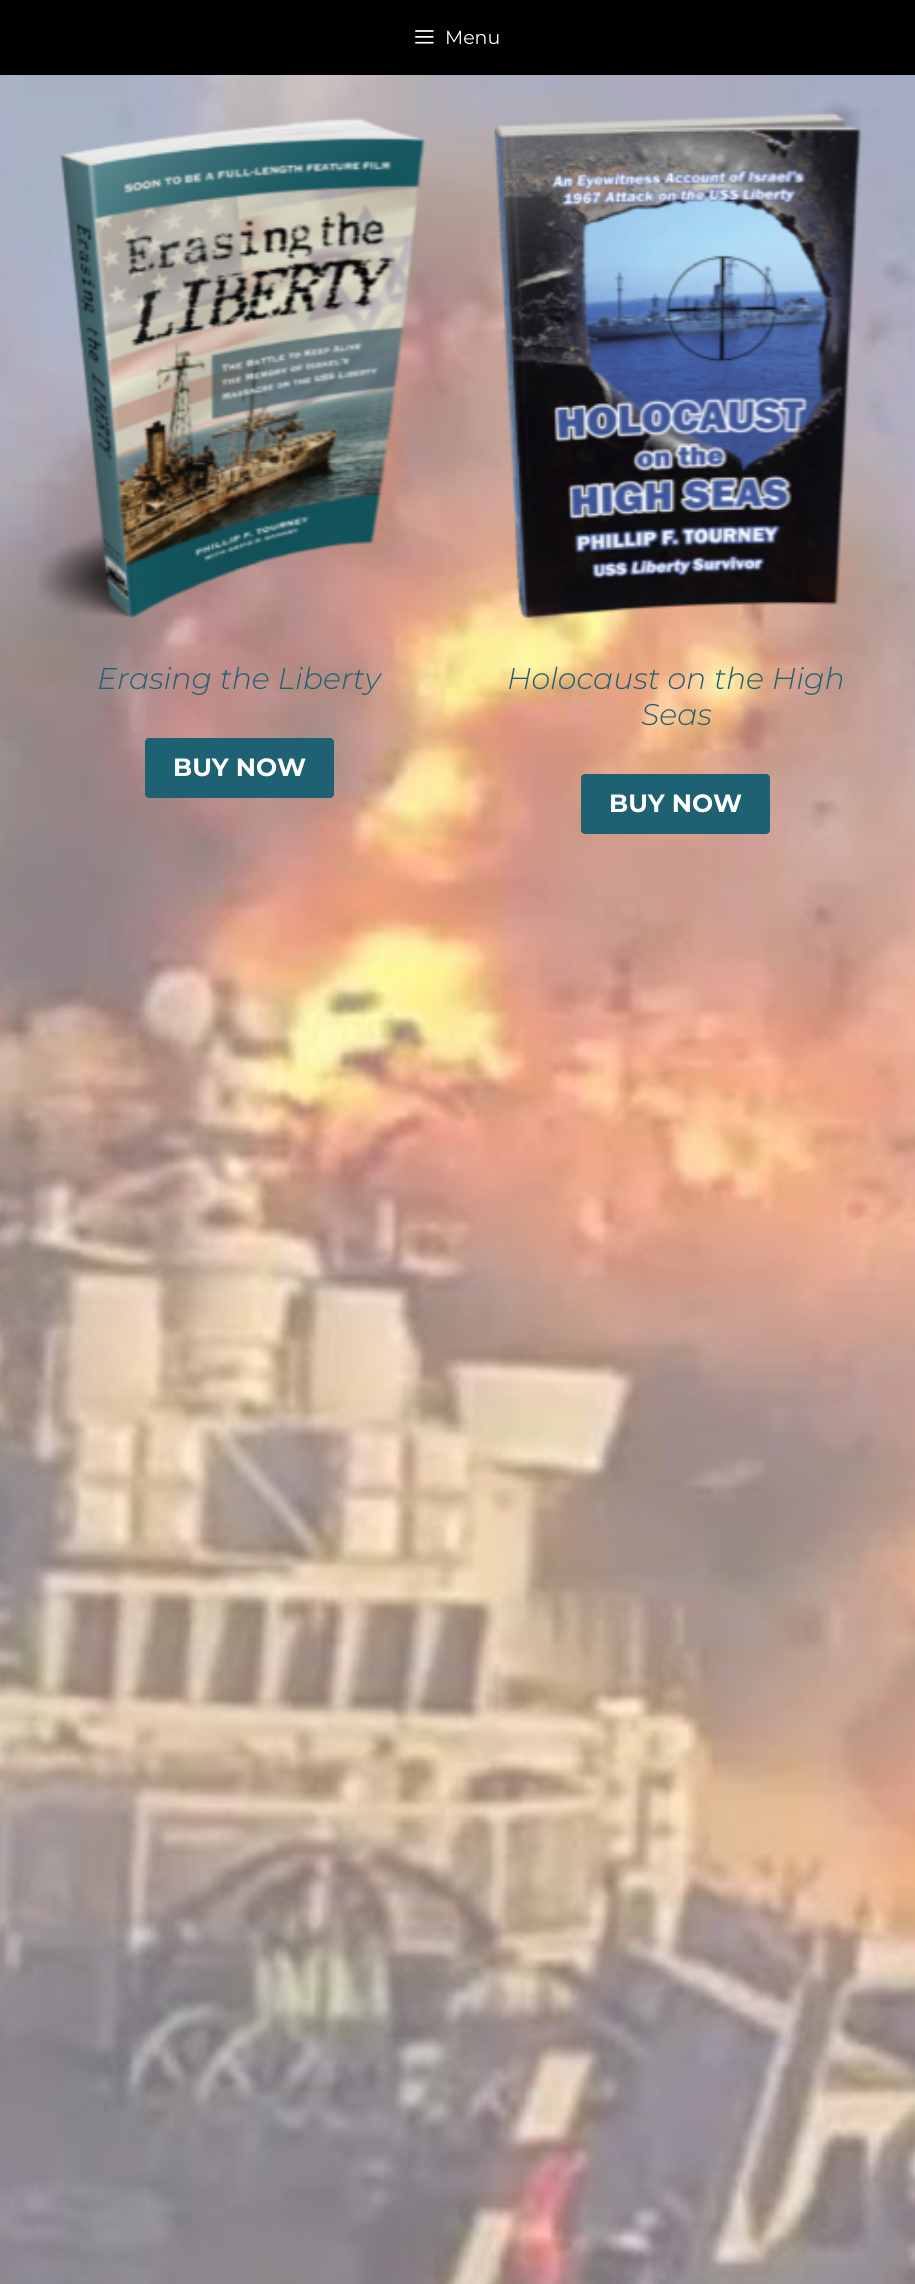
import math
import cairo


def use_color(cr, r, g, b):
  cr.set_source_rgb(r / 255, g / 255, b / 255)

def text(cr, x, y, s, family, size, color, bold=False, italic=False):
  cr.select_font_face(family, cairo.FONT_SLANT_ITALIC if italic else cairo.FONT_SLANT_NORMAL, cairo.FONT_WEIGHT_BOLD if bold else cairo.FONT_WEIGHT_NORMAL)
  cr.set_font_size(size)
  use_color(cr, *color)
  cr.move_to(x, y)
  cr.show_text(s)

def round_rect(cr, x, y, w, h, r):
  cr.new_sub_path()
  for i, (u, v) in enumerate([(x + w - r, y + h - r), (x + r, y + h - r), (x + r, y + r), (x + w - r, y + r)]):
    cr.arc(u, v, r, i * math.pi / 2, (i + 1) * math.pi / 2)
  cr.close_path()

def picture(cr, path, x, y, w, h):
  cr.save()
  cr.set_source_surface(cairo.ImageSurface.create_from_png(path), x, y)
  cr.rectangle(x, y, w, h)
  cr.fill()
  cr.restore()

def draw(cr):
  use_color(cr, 0, 0, 0)
  cr.paint()
  picture(cr, "img_01.png", 415, 30, 19, 14)
  picture(cr, "img_02.png", 0, 75, 915, 2209)
  picture(cr, "img_03.png", 38, 117, 388, 501)
  use_color(cr, 30, 97, 114)
  round_rect(cr, 145, 738, 189, 60, 4)
  cr.fill()
  picture(cr, "img_04.png", 494, 112, 368, 506)
  round_rect(cr, 581, 774, 189, 60, 4)
  cr.fill()
  text(cr, 445, 44, "Menu", "Montserrat", 19, (255, 255, 255))
  text(cr, 97, 689, "Erasing the Liberty", "Montserrat Light", 30, (30, 97, 114), italic=True)
  text(cr, 173, 776, "BUY NOW", "Montserrat", 25, (255, 255, 255), bold=True)
  text(cr, 507, 689, "Holocaust on the High", "Montserrat Light", 30, (30, 97, 114), italic=True)
  text(cr, 641, 725, "Seas", "Montserrat Light", 30, (30, 97, 114), italic=True)
  text(cr, 609, 812, "BUY NOW", "Montserrat", 25, (255, 255, 255), bold=True)


surface = cairo.ImageSurface(cairo.FORMAT_RGB24, 915, 2284)
cr = cairo.Context(surface)
options = cairo.FontOptions()
options.set_hint_metrics(cairo.HINT_METRICS_OFF)
options.set_hint_style(cairo.HINT_STYLE_NONE)
cr.set_font_options(options)
cr.set_miter_limit(4)
draw(cr)
surface.write_to_png("out.png")
